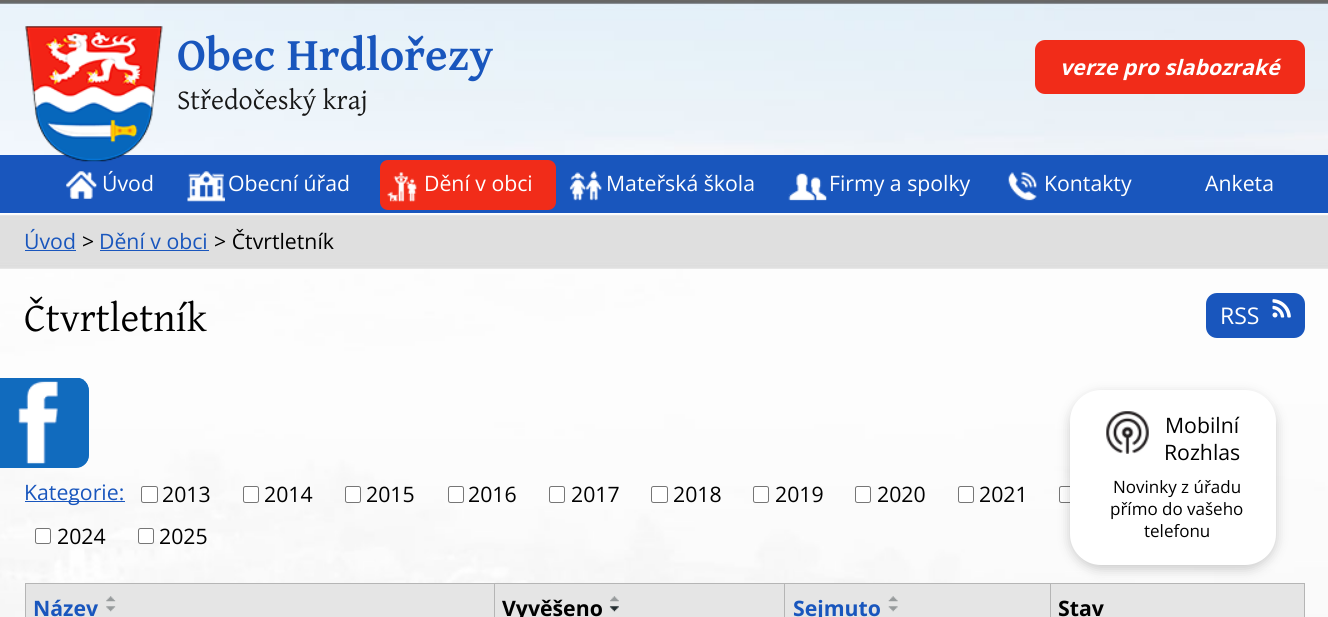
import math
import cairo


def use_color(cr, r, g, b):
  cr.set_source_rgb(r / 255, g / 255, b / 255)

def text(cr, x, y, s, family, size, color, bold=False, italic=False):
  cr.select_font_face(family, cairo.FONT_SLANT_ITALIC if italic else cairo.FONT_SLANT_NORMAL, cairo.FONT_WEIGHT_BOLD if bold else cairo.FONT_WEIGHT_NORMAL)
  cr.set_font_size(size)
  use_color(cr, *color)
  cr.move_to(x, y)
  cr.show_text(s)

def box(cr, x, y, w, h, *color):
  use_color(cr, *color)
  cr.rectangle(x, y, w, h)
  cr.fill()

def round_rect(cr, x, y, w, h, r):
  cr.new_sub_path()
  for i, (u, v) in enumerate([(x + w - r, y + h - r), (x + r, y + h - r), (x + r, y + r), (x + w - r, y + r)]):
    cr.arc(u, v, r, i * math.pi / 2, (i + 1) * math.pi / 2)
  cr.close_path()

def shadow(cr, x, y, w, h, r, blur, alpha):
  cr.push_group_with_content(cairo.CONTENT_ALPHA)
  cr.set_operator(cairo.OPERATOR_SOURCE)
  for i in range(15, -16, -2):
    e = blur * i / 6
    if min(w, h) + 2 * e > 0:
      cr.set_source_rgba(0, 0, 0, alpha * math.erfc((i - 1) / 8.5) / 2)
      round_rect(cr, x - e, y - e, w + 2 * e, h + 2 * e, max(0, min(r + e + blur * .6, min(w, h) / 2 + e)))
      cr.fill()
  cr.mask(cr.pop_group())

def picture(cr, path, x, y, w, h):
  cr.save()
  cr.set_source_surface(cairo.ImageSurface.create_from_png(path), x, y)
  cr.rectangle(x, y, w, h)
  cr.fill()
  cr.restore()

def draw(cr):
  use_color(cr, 255, 255, 255)
  cr.paint()
  picture(cr, "img_01.png", 0, 0, 1328, 617)
  box(cr, 0, 155, 1328, 58, 25, 86, 189)
  picture(cr, "img_02.png", 25, 26, 138, 136)
  use_color(cr, 241, 44, 25)
  round_rect(cr, 1035, 40, 270, 54, 10)
  cr.fill()
  use_color(cr, 17, 107, 190)
  cr.new_path()
  cr.move_to(-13, 378)
  cr.line_to(76, 378)
  cr.curve_to(83, 378, 89, 384, 89, 391)
  cr.line_to(89, 455)
  cr.curve_to(89, 462, 83, 468, 76, 468)
  cr.line_to(-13, 468)
  cr.close_path()
  cr.fill()
  picture(cr, "img_03.png", 18, 378, 71, 90)
  use_color(cr, 255, 255, 255)
  round_rect(cr, 1059.5, 486.5, 15, 16, 2)
  cr.fill_preserve()
  use_color(cr, 118, 118, 118)
  cr.set_line_width(1)
  cr.stroke()
  box(cr, 1051, 584, 253, 33, 229, 229, 229)
  box(cr, 1050, 583, 255, 1, 181, 181, 181)
  use_color(cr, 0, 0, 0)
  shadow(cr, 1070, 394, 206, 175, 31, 6, 0.2)
  use_color(cr, 255, 255, 255)
  round_rect(cr, 1070, 390, 206, 175, 31)
  cr.fill()
  picture(cr, "img_04.png", 1106, 411, 43, 43)
  picture(cr, "img_05.png", 66, 171, 31, 28)
  picture(cr, "img_06.png", 187, 171, 38, 31)
  use_color(cr, 241, 44, 25)
  round_rect(cr, 380, 160, 176, 50, 8)
  cr.fill()
  picture(cr, "img_07.png", 387, 172, 30, 30)
  picture(cr, "img_08.png", 569, 171, 33, 30)
  picture(cr, "img_09.png", 788, 173, 39, 28)
  picture(cr, "img_10.png", 1008, 172, 29, 29)
  box(cr, 25, 250, 51, 1, 25, 86, 189)
  box(cr, 100, 250, 109, 1, 25, 86, 189)
  round_rect(cr, 1206, 293, 99, 45, 11)
  cr.fill()
  picture(cr, "img_11.png", 1272, 299, 19, 19)
  box(cr, 25, 501, 100, 1, 25, 86, 189)
  use_color(cr, 255, 255, 255)
  round_rect(cr, 141.5, 486.5, 16, 16, 2)
  cr.fill_preserve()
  use_color(cr, 118, 118, 118)
  cr.stroke()
  use_color(cr, 255, 255, 255)
  round_rect(cr, 243.5, 486.5, 15, 16, 2)
  cr.fill_preserve()
  use_color(cr, 118, 118, 118)
  cr.stroke()
  use_color(cr, 255, 255, 255)
  round_rect(cr, 345.5, 486.5, 15, 16, 2)
  cr.fill_preserve()
  use_color(cr, 118, 118, 118)
  cr.stroke()
  use_color(cr, 255, 255, 255)
  round_rect(cr, 448.5, 486.5, 15, 16, 2)
  cr.fill_preserve()
  use_color(cr, 118, 118, 118)
  cr.stroke()
  use_color(cr, 255, 255, 255)
  round_rect(cr, 549.5, 486.5, 15, 16, 2)
  cr.fill_preserve()
  use_color(cr, 118, 118, 118)
  cr.stroke()
  use_color(cr, 255, 255, 255)
  round_rect(cr, 651.5, 486.5, 16, 16, 2)
  cr.fill_preserve()
  use_color(cr, 118, 118, 118)
  cr.stroke()
  use_color(cr, 255, 255, 255)
  round_rect(cr, 753.5, 486.5, 15, 16, 2)
  cr.fill_preserve()
  use_color(cr, 118, 118, 118)
  cr.stroke()
  use_color(cr, 255, 255, 255)
  round_rect(cr, 855.5, 486.5, 15, 16, 2)
  cr.fill_preserve()
  use_color(cr, 118, 118, 118)
  cr.stroke()
  use_color(cr, 255, 255, 255)
  round_rect(cr, 958.5, 486.5, 15, 16, 2)
  cr.fill_preserve()
  use_color(cr, 118, 118, 118)
  cr.stroke()
  use_color(cr, 255, 255, 255)
  round_rect(cr, 35.5, 528.5, 15, 15, 2)
  cr.fill_preserve()
  use_color(cr, 118, 118, 118)
  cr.stroke()
  use_color(cr, 255, 255, 255)
  round_rect(cr, 138.5, 528.5, 15, 15, 2)
  cr.fill_preserve()
  use_color(cr, 118, 118, 118)
  cr.stroke()
  box(cr, 26, 584, 468, 33, 229, 229, 229)
  box(cr, 1050, 583, 1, 34, 181, 181, 181)
  box(cr, 784, 583, 267, 1, 181, 181, 181)
  box(cr, 784, 583, 1, 34, 181, 181, 181)
  box(cr, 494, 583, 291, 1, 181, 181, 181)
  box(cr, 494, 583, 1, 34, 181, 181, 181)
  box(cr, 25, 583, 470, 1, 181, 181, 181)
  box(cr, 25, 583, 1, 34, 181, 181, 181)
  picture(cr, "img_12.png", 106, 596, 10, 6)
  picture(cr, "img_13.png", 106, 606, 10, 6)
  box(cr, 495, 584, 289, 33, 229, 229, 229)
  picture(cr, "img_14.png", 610, 596, 9, 6)
  picture(cr, "img_15.png", 609, 606, 10, 6)
  box(cr, 785, 584, 265, 33, 229, 229, 229)
  picture(cr, "img_16.png", 888, 596, 10, 6)
  picture(cr, "img_17.png", 888, 606, 10, 6)
  box(cr, 1304, 583, 1, 34, 181, 181, 181)
  text(cr, 177, 70, "Obec Hrdlořezy", "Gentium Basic", 46.75, (25, 86, 189), bold=True)
  text(cr, 177, 109, "Středočeský kraj", "Gentium Basic", 28, (24, 24, 24))
  text(cr, 1060, 75, "verze pro slabozraké", "Open Sans", 21.25, (255, 255, 255), bold=True, italic=True)
  text(cr, 1165, 433, "Mobilní", "Open Sans", 21.25, (0, 0, 0))
  text(cr, 1164, 460, "Rozhlas", "Open Sans", 21.25, (0, 0, 0))
  text(cr, 1113, 493, "Novinky z úřadu", "Open Sans", 17, (0, 0, 0))
  text(cr, 1110, 515, "přímo do vašeho", "Open Sans", 17, (0, 0, 0))
  text(cr, 1144, 537, "telefonu", "Open Sans", 17, (0, 0, 0))
  text(cr, 102, 191, "Úvod", "Open Sans", 21.25, (255, 255, 255))
  text(cr, 228, 191, "Obecní úřad", "Open Sans", 21.25, (255, 255, 255))
  text(cr, 424, 191, "Dění v obci", "Open Sans", 21.25, (255, 255, 255))
  text(cr, 606, 191, "Mateřská škola", "Open Sans", 21.25, (255, 255, 255))
  text(cr, 829, 191, "Firmy a spolky", "Open Sans", 21.25, (255, 255, 255))
  text(cr, 1044, 191, "Kontakty", "Open Sans", 21.25, (255, 255, 255))
  text(cr, 1205, 191, "Anketa", "Open Sans", 21.25, (255, 255, 255))
  text(cr, 24, 249, "Úvod", "Open Sans", 21.25, (25, 86, 189))
  text(cr, 82, 249, ">", "Open Sans", 21.25, (0, 0, 0))
  text(cr, 99, 249, "Dění v obci", "Open Sans", 21.25, (25, 86, 189))
  text(cr, 214, 249, "> Čtvrtletník", "Open Sans", 21.25, (0, 0, 0))
  text(cr, 24, 331, "Čtvrtletník", "Gentium Basic", 40.5, (0, 0, 0))
  text(cr, 1220, 324, "RSS", "Open Sans", 23, (255, 255, 255))
  text(cr, 24, 500, "Kategorie:", "Open Sans", 21.25, (25, 86, 189))
  text(cr, 162, 502, "2013", "Open Sans", 21.25, (0, 0, 0))
  text(cr, 264, 502, "2014", "Open Sans", 21.25, (0, 0, 0))
  text(cr, 366, 502, "2015", "Open Sans", 21.25, (0, 0, 0))
  text(cr, 468, 502, "2016", "Open Sans", 21.25, (0, 0, 0))
  text(cr, 571, 502, "2017", "Open Sans", 21.25, (0, 0, 0))
  text(cr, 673, 502, "2018", "Open Sans", 21.25, (0, 0, 0))
  text(cr, 775, 502, "2019", "Open Sans", 21.25, (0, 0, 0))
  text(cr, 877, 502, "2020", "Open Sans", 21.25, (0, 0, 0))
  text(cr, 979, 502, "2021", "Open Sans", 21.25, (0, 0, 0))
  text(cr, 57, 544, "2024", "Open Sans", 21.25, (0, 0, 0))
  text(cr, 159, 544, "2025", "Open Sans", 21.25, (0, 0, 0))
  text(cr, 33, 616, "Název", "Open Sans", 21.25, (25, 86, 189), bold=True)
  text(cr, 502, 616, "Vyvěšeno", "Open Sans", 21.25, (0, 0, 0), bold=True)
  text(cr, 793, 616, "Sejmuto", "Open Sans", 21.25, (25, 86, 189), bold=True)
  text(cr, 1058, 616, "Stav", "Open Sans", 21.25, (0, 0, 0), bold=True)


surface = cairo.ImageSurface(cairo.FORMAT_RGB24, 1328, 617)
cr = cairo.Context(surface)
options = cairo.FontOptions()
options.set_hint_metrics(cairo.HINT_METRICS_OFF)
options.set_hint_style(cairo.HINT_STYLE_NONE)
cr.set_font_options(options)
cr.set_miter_limit(4)
draw(cr)
surface.write_to_png("out.png")
